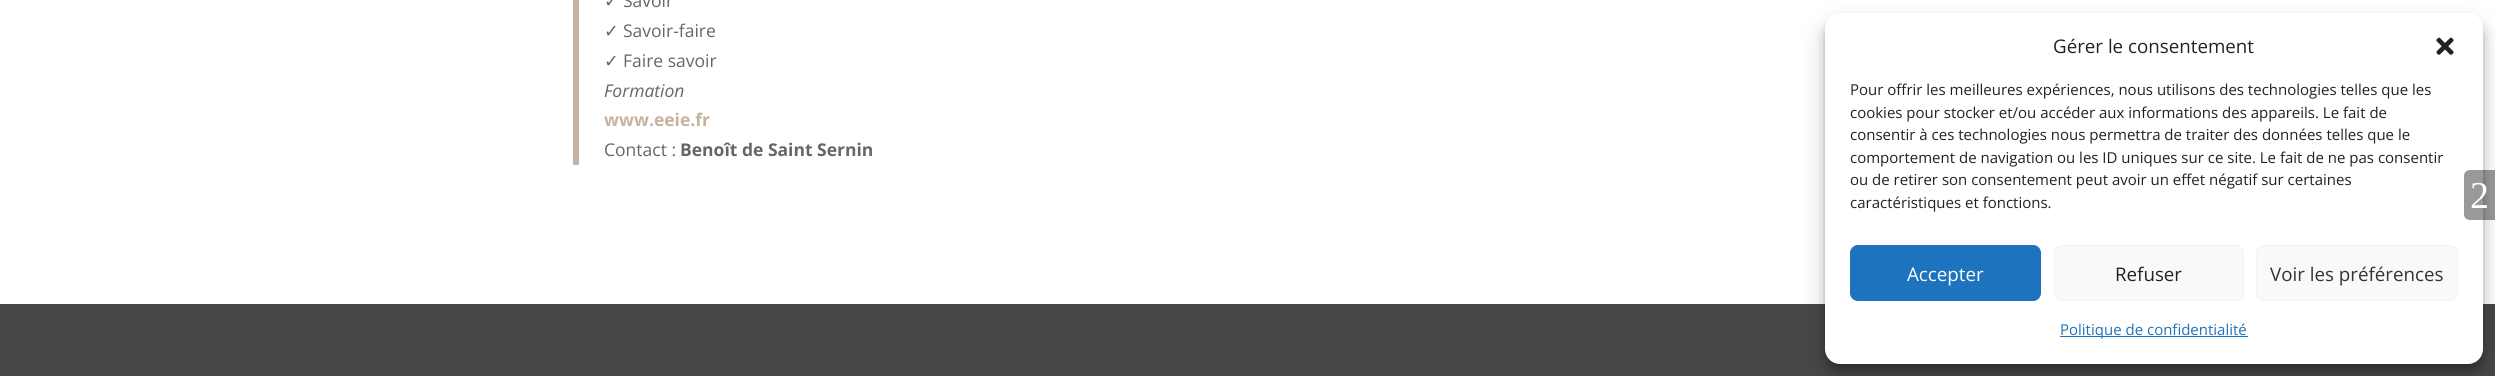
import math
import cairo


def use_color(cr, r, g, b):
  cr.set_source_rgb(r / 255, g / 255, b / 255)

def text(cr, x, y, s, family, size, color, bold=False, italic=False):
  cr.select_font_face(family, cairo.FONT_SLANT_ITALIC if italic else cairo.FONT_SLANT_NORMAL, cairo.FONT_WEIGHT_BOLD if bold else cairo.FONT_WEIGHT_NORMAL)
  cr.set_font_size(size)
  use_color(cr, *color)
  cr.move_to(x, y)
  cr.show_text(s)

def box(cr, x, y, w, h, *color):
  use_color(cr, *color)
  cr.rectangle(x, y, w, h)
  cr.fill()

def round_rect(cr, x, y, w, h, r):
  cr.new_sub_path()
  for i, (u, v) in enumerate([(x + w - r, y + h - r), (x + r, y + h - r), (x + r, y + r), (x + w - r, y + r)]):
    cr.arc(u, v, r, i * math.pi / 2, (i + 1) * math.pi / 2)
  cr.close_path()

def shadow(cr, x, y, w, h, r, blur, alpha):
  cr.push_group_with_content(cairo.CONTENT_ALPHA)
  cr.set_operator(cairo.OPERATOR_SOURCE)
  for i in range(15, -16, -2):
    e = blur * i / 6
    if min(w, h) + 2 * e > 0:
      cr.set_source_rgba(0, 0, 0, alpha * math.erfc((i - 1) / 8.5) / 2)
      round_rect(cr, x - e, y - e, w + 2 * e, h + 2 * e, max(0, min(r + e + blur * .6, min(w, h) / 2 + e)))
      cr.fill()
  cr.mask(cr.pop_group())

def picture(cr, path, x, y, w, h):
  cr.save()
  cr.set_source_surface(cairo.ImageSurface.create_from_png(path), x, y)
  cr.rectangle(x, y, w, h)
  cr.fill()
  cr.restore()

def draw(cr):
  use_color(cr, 255, 255, 255)
  cr.paint()
  box(cr, 573, 0, 6, 165, 197, 179, 159)
  box(cr, 0, 304, 2495, 72, 71, 71, 71)
  use_color(cr, 0, 0, 0)
  shadow(cr, 1825, 20, 658, 351, 15, 4, 0.23)
  shadow(cr, 1825, 25, 658, 351, 15, 12.5, 0.19)
  use_color(cr, 255, 255, 255)
  round_rect(cr, 1825, 13, 658, 351, 15)
  cr.fill()
  picture(cr, "img_01.png", 2436, 37, 18, 18)
  use_color(cr, 30, 115, 190)
  round_rect(cr, 1850.5, 245.5, 190, 55, 7.5)
  cr.fill_preserve()
  cr.set_line_width(1)
  cr.stroke()
  use_color(cr, 249, 249, 249)
  round_rect(cr, 2054.5, 245.5, 189, 55, 7.5)
  cr.fill_preserve()
  use_color(cr, 242, 242, 242)
  cr.stroke()
  use_color(cr, 249, 249, 249)
  round_rect(cr, 2256.5, 245.5, 201, 55, 7.5)
  cr.fill_preserve()
  use_color(cr, 242, 242, 242)
  cr.stroke()
  box(cr, 2060, 336, 188, 1, 30, 115, 190)
  cr.set_source_rgba(0, 0, 0, 0.4)
  cr.new_path()
  cr.move_to(2470, 170)
  cr.line_to(2495, 170)
  cr.line_to(2495, 220)
  cr.line_to(2470, 220)
  cr.curve_to(2466.5, 220, 2464, 217.5, 2464, 214)
  cr.line_to(2464, 176)
  cr.curve_to(2464, 172.5, 2466.5, 170, 2470, 170)
  cr.close_path()
  cr.fill()
  text(cr, 604, 7, "✓", "DejaVu Sans", 17.5, (102, 102, 102))
  text(cr, 623, 7, "Savoir", "Open Sans", 17.5, (102, 102, 102))
  text(cr, 604, 37, "✓", "DejaVu Sans", 17.5, (102, 102, 102))
  text(cr, 623, 37, "Savoir-faire", "Open Sans", 17.5, (102, 102, 102))
  text(cr, 604, 67, "✓", "DejaVu Sans", 17.5, (102, 102, 102))
  text(cr, 623, 67, "Faire savoir", "Open Sans", 17.5, (102, 102, 102))
  text(cr, 604, 97, "Formation", "Open Sans", 17.5, (102, 102, 102), italic=True)
  text(cr, 604, 126, "www.eeie.fr", "Open Sans", 17.5, (197, 179, 159), bold=True)
  text(cr, 604, 156, "Contact :", "Open Sans", 17.5, (102, 102, 102))
  text(cr, 680, 156, "Benoît de Saint Sernin", "Open Sans", 17.5, (102, 102, 102), bold=True)
  text(cr, 2053, 53, "Gérer le consentement", "Open Sans", 18.75, (34, 34, 34))
  text(cr, 1850, 95, "Pour offrir les meilleures expériences, nous utilisons des technologies telles que les", "Open Sans", 15, (34, 34, 34))
  text(cr, 1850, 118, "cookies pour stocker et/ou accéder aux informations des appareils. Le fait de", "Open Sans", 15, (34, 34, 34))
  text(cr, 1850, 140, "consentir à ces technologies nous permettra de traiter des données telles que le", "Open Sans", 15, (34, 34, 34))
  text(cr, 1850, 163, "comportement de navigation ou les ID uniques sur ce site. Le fait de ne pas consentir", "Open Sans", 15, (34, 34, 34))
  text(cr, 1850, 185, "ou de retirer son consentement peut avoir un effet négatif sur certaines", "Open Sans", 15, (34, 34, 34))
  text(cr, 1850, 208, "caractéristiques et fonctions.", "Open Sans", 15, (34, 34, 34))
  text(cr, 1907, 281, "Accepter", "Open Sans", 18.75, (255, 255, 255))
  text(cr, 2115, 281, "Refuser", "Open Sans", 18.75, (34, 34, 34))
  text(cr, 2270, 281, "Voir les préférences", "Open Sans", 18.75, (51, 51, 51))
  text(cr, 2060, 335, "Politique de confidentialité", "Open Sans", 15, (30, 115, 190))
  text(cr, 2470, 208, "2", "Liberation Serif", 38, (255, 255, 255))


surface = cairo.ImageSurface(cairo.FORMAT_RGB24, 2495, 376)
cr = cairo.Context(surface)
options = cairo.FontOptions()
options.set_hint_metrics(cairo.HINT_METRICS_OFF)
options.set_hint_style(cairo.HINT_STYLE_NONE)
cr.set_font_options(options)
cr.set_miter_limit(4)
draw(cr)
surface.write_to_png("out.png")
